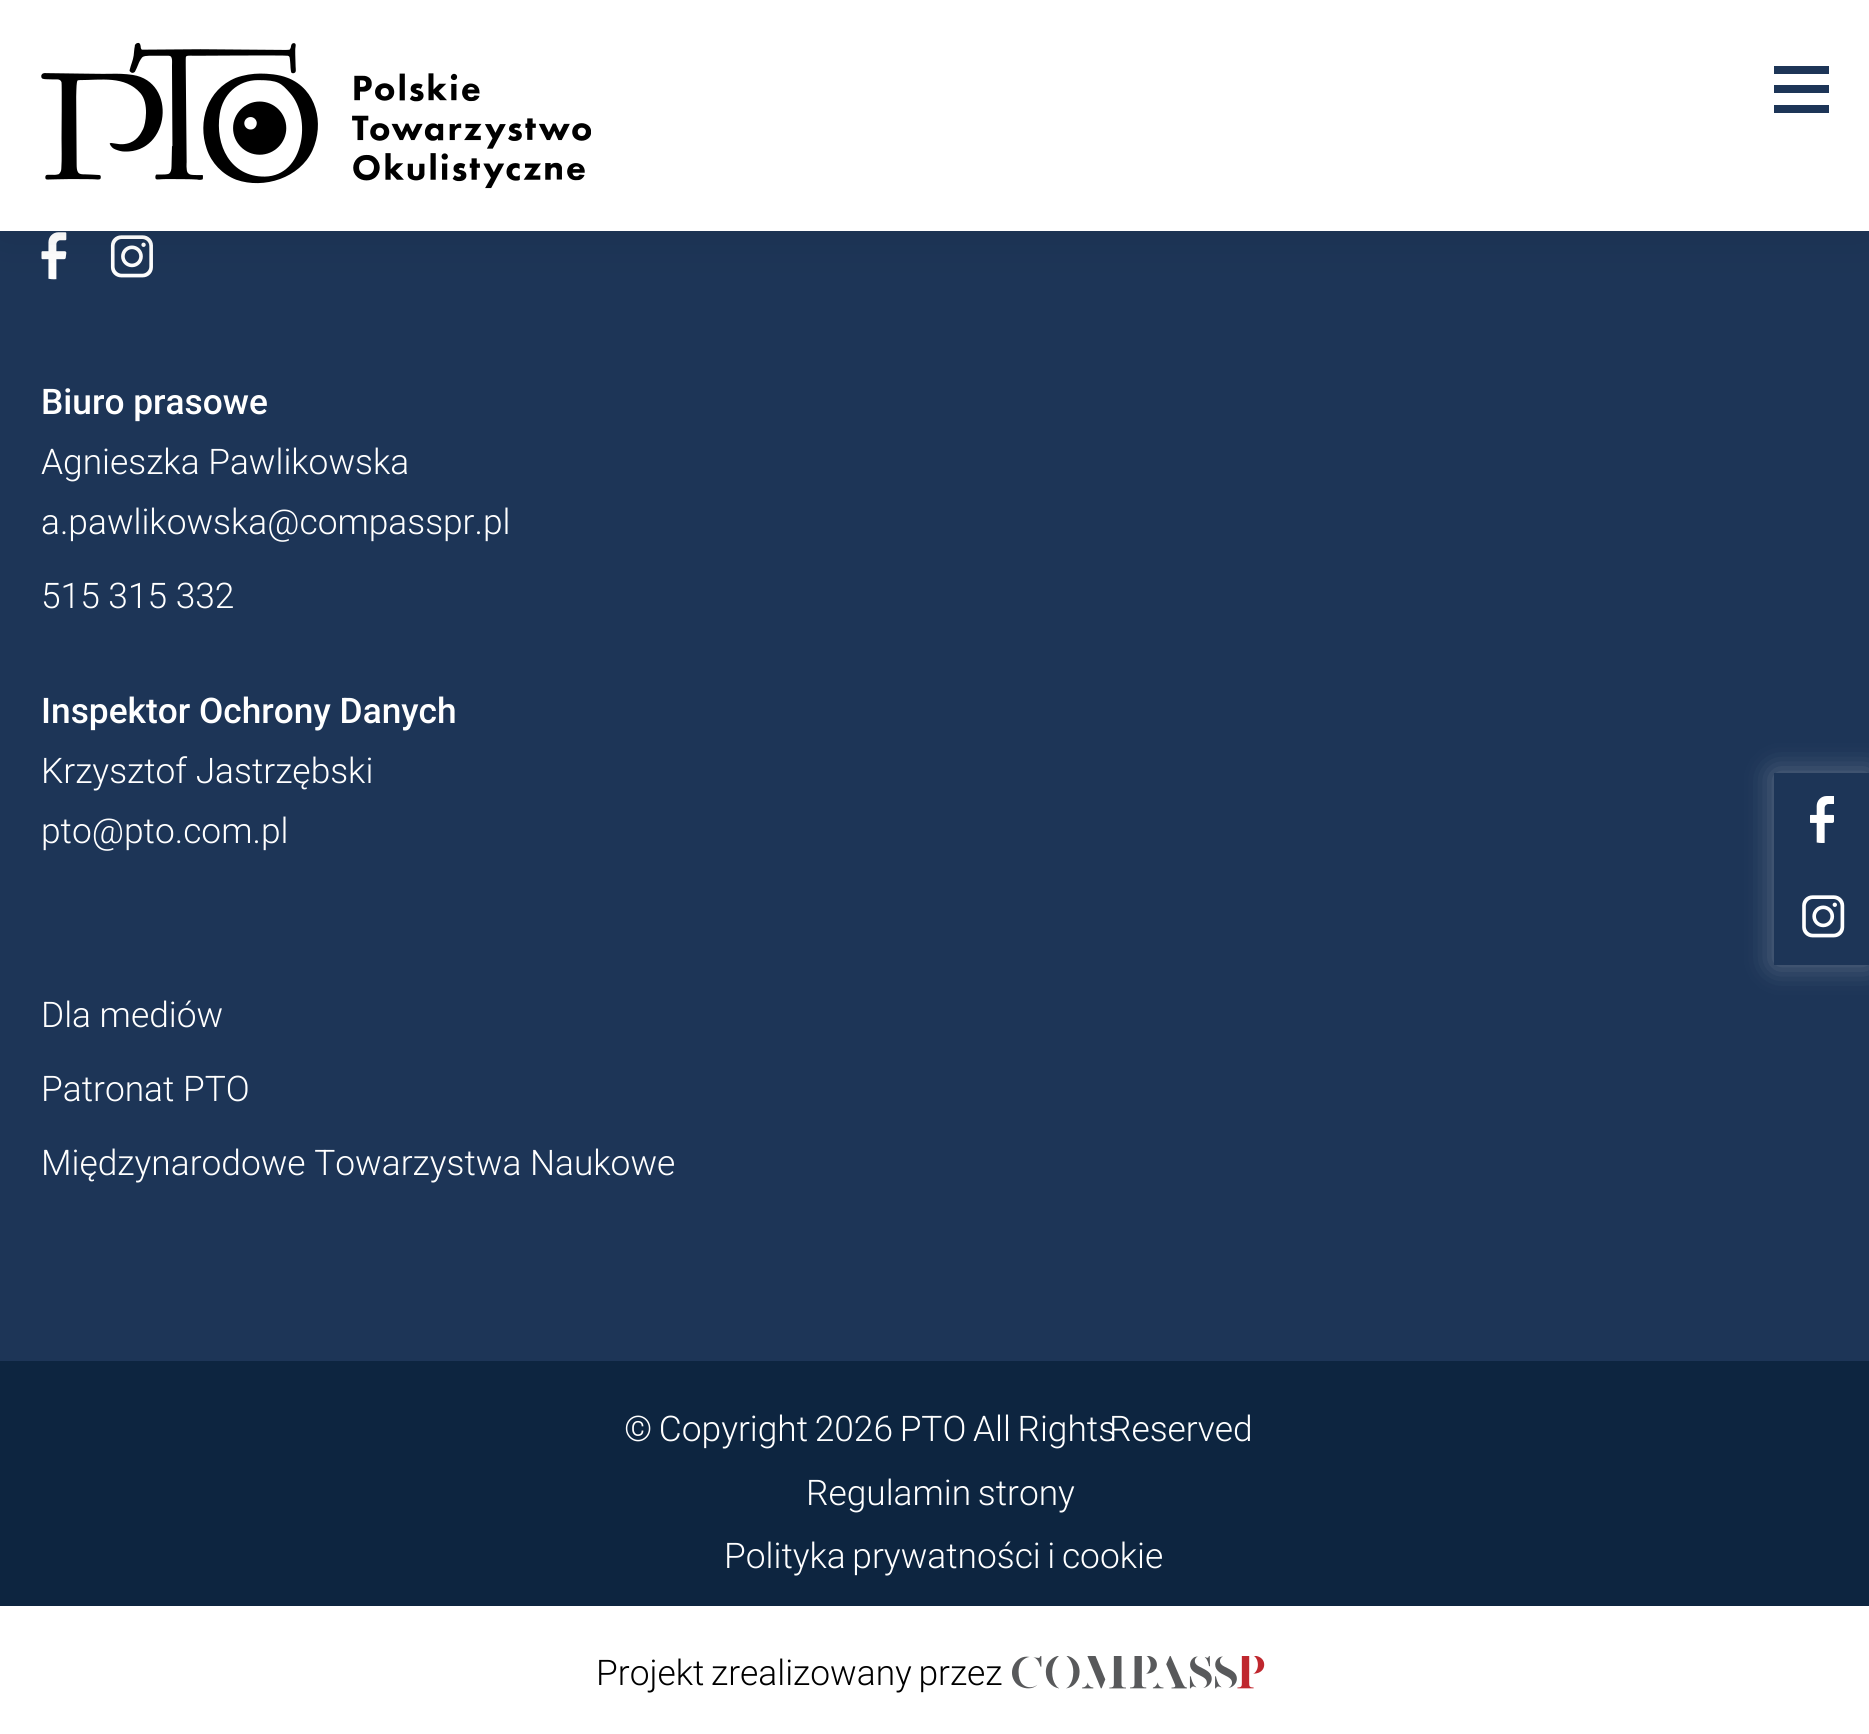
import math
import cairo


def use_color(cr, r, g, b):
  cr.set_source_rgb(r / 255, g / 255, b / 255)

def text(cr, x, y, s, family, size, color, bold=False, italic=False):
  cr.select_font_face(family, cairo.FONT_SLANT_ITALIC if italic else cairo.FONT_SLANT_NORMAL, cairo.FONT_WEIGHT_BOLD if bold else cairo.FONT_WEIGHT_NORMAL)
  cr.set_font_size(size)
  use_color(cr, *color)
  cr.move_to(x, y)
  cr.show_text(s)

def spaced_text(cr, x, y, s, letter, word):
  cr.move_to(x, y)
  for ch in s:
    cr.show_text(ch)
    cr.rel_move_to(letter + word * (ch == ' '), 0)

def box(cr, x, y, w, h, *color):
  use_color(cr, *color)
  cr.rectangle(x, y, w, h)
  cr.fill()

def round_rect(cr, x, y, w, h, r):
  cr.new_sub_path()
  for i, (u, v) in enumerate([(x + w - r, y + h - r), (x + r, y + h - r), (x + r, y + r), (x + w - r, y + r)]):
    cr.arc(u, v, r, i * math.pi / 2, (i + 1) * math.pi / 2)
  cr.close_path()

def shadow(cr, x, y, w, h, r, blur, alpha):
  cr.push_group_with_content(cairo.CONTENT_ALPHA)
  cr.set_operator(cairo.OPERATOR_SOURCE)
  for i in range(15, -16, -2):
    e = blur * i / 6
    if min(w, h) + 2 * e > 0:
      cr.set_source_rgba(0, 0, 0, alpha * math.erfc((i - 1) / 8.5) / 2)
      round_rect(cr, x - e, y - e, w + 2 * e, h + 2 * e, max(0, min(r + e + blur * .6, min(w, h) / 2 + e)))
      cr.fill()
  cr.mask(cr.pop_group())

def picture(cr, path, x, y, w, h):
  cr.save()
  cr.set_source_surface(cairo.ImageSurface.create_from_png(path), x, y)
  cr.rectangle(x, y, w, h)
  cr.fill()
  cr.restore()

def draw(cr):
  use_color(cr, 29, 53, 87)
  cr.paint()
  picture(cr, "img_02.png", 41, 232, 26, 48)
  picture(cr, "img_03.png", 110, 235, 43, 43)
  use_color(cr, 0, 0, 0)
  shadow(cr, 0, 0, 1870, 231, 0, 27.5, 0.1)
  box(cr, 0, 0, 1869, 231, 255, 255, 255)
  picture(cr, "img_01.png", 41, 42, 550, 147)
  box(cr, 1774, 66, 55, 8, 29, 53, 87)
  box(cr, 1774, 85, 55, 8, 29, 53, 87)
  box(cr, 1774, 105, 55, 8, 29, 53, 87)
  box(cr, 0, 1361, 1869, 245, 13, 37, 64)
  box(cr, 0, 1606, 1869, 128, 255, 255, 255)
  picture(cr, "img_04.png", 1012, 1656, 253, 33)
  cr.save()
  cr.set_fill_rule(cairo.FILL_RULE_EVEN_ODD)
  cr.new_path()
  cr.move_to(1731, 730)
  cr.line_to(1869, 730)
  cr.line_to(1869, 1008)
  cr.line_to(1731, 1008)
  cr.close_path()
  cr.move_to(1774, 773)
  cr.line_to(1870, 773)
  cr.line_to(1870, 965)
  cr.line_to(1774, 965)
  cr.close_path()
  cr.clip()
  use_color(cr, 255, 255, 255)
  shadow(cr, 1774, 773, 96, 192, 0, 14, 0.3)
  cr.restore()
  picture(cr, "img_05.png", 1810, 796, 24, 47)
  picture(cr, "img_06.png", 1802, 895, 43, 43)
  text(cr, 41, 414, "Biuro prasowe", "Roboto Medium", 35.3, (255, 255, 255))
  text(cr, 41, 474, "Agnieszka Pawlikowska", "Roboto Light", 35.3, (255, 255, 255))
  text(cr, 41, 534, "a.pawlikowska@compasspr.pl", "Roboto Light", 35.3, (255, 255, 255))
  text(cr, 41, 608, "515 315 332", "Roboto Light", 35.3, (255, 255, 255))
  text(cr, 41, 723, "Inspektor Ochrony Danych", "Roboto Medium", 35.3, (255, 255, 255))
  text(cr, 41, 783, "Krzysztof Jastrzębski", "Roboto Light", 35.3, (255, 255, 255))
  text(cr, 41, 843, "pto@pto.com.pl", "Roboto Light", 35.3, (255, 255, 255))
  text(cr, 41, 1027, "Dla mediów", "Roboto Light", 35.3, (255, 255, 255))
  text(cr, 41, 1101, "Patronat PTO", "Roboto Light", 35.3, (255, 255, 255))
  text(cr, 41, 1175, "Międzynarodowe Towarzystwa Naukowe", "Roboto Light", 35.3, (255, 255, 255))
  spaced_text(cr, 624, 1441, "© Copyright 2026 PTO All Rights", 0, -2)
  text(cr, 1109, 1441, "Reserved", "Roboto Light", 35.3, (255, 255, 255))
  spaced_text(cr, 806, 1505, "Regulamin strony", 0, -2)
  spaced_text(cr, 724, 1568, "Polityka prywatności i cookie", 0, -2)
  use_color(cr, 0, 0, 0)
  spaced_text(cr, 596, 1685, "Projekt zrealizowany przez", 0, -2)


surface = cairo.ImageSurface(cairo.FORMAT_RGB24, 1869, 1734)
cr = cairo.Context(surface)
options = cairo.FontOptions()
options.set_hint_metrics(cairo.HINT_METRICS_OFF)
options.set_hint_style(cairo.HINT_STYLE_NONE)
cr.set_font_options(options)
cr.set_miter_limit(4)
draw(cr)
surface.write_to_png("out.png")
